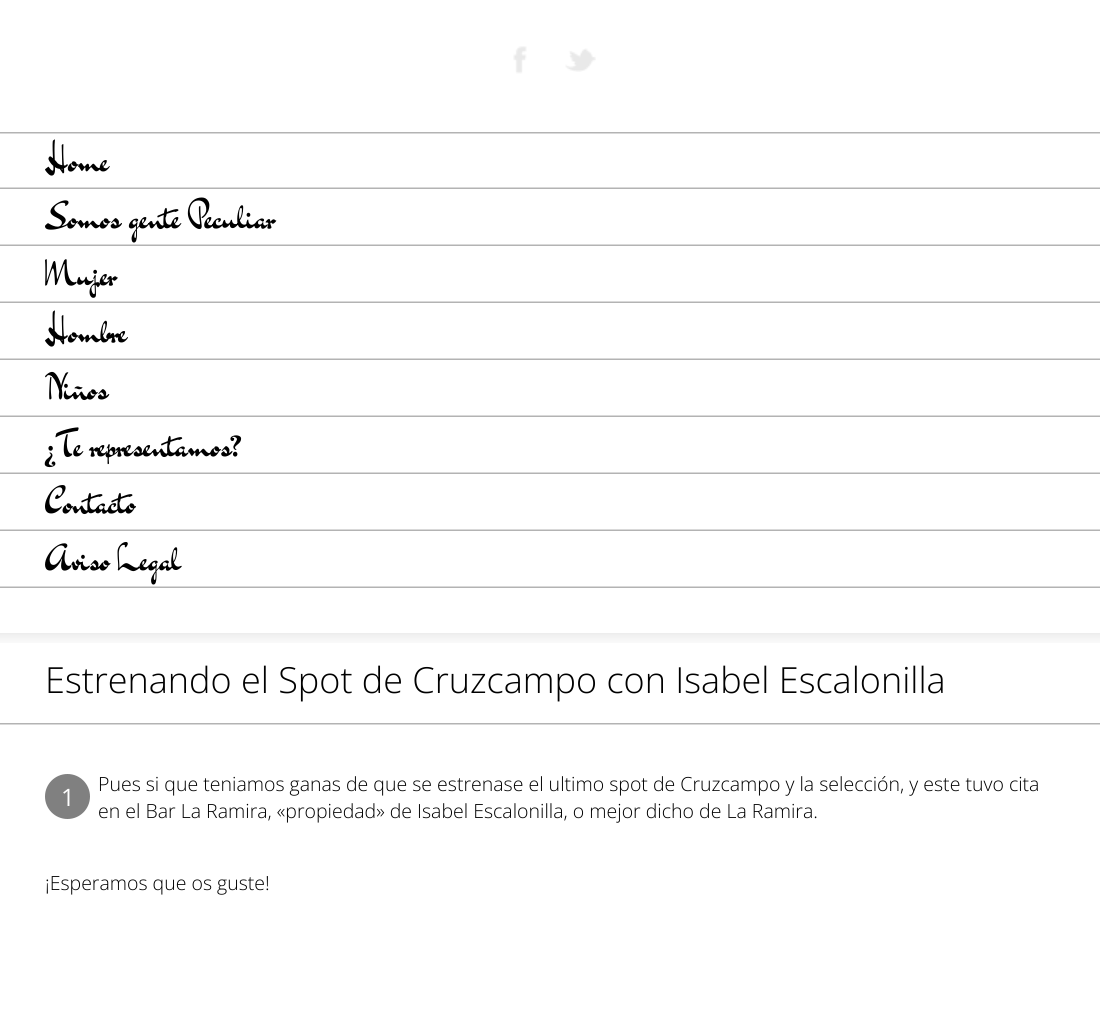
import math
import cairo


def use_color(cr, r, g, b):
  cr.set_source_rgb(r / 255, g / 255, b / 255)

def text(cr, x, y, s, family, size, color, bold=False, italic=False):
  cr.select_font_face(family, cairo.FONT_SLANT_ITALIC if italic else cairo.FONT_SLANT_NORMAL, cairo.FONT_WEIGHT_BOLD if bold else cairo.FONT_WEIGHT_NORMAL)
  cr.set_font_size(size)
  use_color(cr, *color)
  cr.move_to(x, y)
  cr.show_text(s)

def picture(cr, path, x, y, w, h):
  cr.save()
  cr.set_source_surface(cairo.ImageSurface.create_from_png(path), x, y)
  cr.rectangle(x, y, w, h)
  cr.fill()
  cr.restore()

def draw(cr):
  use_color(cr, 255, 255, 255)
  cr.paint()
  picture(cr, "img_01.png", 513, 46, 14, 28)
  picture(cr, "img_02.png", 565, 48, 31, 24)
  picture(cr, "img_03.png", 0, 187, 1100, 2)
  picture(cr, "img_04.png", 0, 132, 1100, 2)
  picture(cr, "img_03.png", 0, 244, 1100, 2)
  picture(cr, "img_03.png", 0, 301, 1100, 2)
  picture(cr, "img_03.png", 0, 358, 1100, 2)
  picture(cr, "img_03.png", 0, 415, 1100, 2)
  picture(cr, "img_03.png", 0, 472, 1100, 2)
  picture(cr, "img_03.png", 0, 529, 1100, 2)
  picture(cr, "img_03.png", 0, 586, 1100, 2)
  picture(cr, "img_05.png", 0, 633, 1100, 10)
  picture(cr, "img_04.png", 0, 723, 1100, 2)
  use_color(cr, 128, 128, 128)
  cr.arc(67.5, 796.5, 22.5, 0, 2 * math.pi)
  cr.fill()
  text(cr, 45, 170, "Home", "Dr Sugiyama", 34.5, (0, 0, 0))
  text(cr, 45, 227, "Somos gente Peculiar", "Dr Sugiyama", 34.5, (0, 0, 0))
  text(cr, 45, 284, "Mujer", "Dr Sugiyama", 34.5, (0, 0, 0))
  text(cr, 45, 341, "Hombre", "Dr Sugiyama", 34.5, (0, 0, 0))
  text(cr, 45, 398, "Niños", "Dr Sugiyama", 34.5, (0, 0, 0))
  text(cr, 45, 455, "¿Te representamos?", "Dr Sugiyama", 34.5, (0, 0, 0))
  text(cr, 45, 512, "Contacto", "Dr Sugiyama", 34.5, (0, 0, 0))
  text(cr, 45, 569, "Aviso Legal", "Dr Sugiyama", 34.5, (0, 0, 0))
  text(cr, 45, 693, "Estrenando el Spot de Cruzcampo con Isabel Escalonilla", "Open Sans Light", 36, (0, 0, 0))
  text(cr, 61, 806, "1", "Open Sans", 24, (255, 255, 255))
  text(cr, 98, 791, "Pues si que teniamos ganas de que se estrenase el ultimo spot de Cruzcampo y la selección, y este tuvo cita", "Open Sans Light", 19.5, (0, 0, 0))
  text(cr, 98, 818, "en el Bar La Ramira, «propiedad» de Isabel Escalonilla, o mejor dicho de La Ramira.", "Open Sans Light", 19.5, (0, 0, 0))
  text(cr, 45, 890, "¡Esperamos que os guste!", "Open Sans Light", 19.5, (0, 0, 0))


surface = cairo.ImageSurface(cairo.FORMAT_RGB24, 1100, 1032)
cr = cairo.Context(surface)
options = cairo.FontOptions()
options.set_hint_metrics(cairo.HINT_METRICS_OFF)
options.set_hint_style(cairo.HINT_STYLE_NONE)
cr.set_font_options(options)
cr.set_miter_limit(4)
draw(cr)
surface.write_to_png("out.png")
